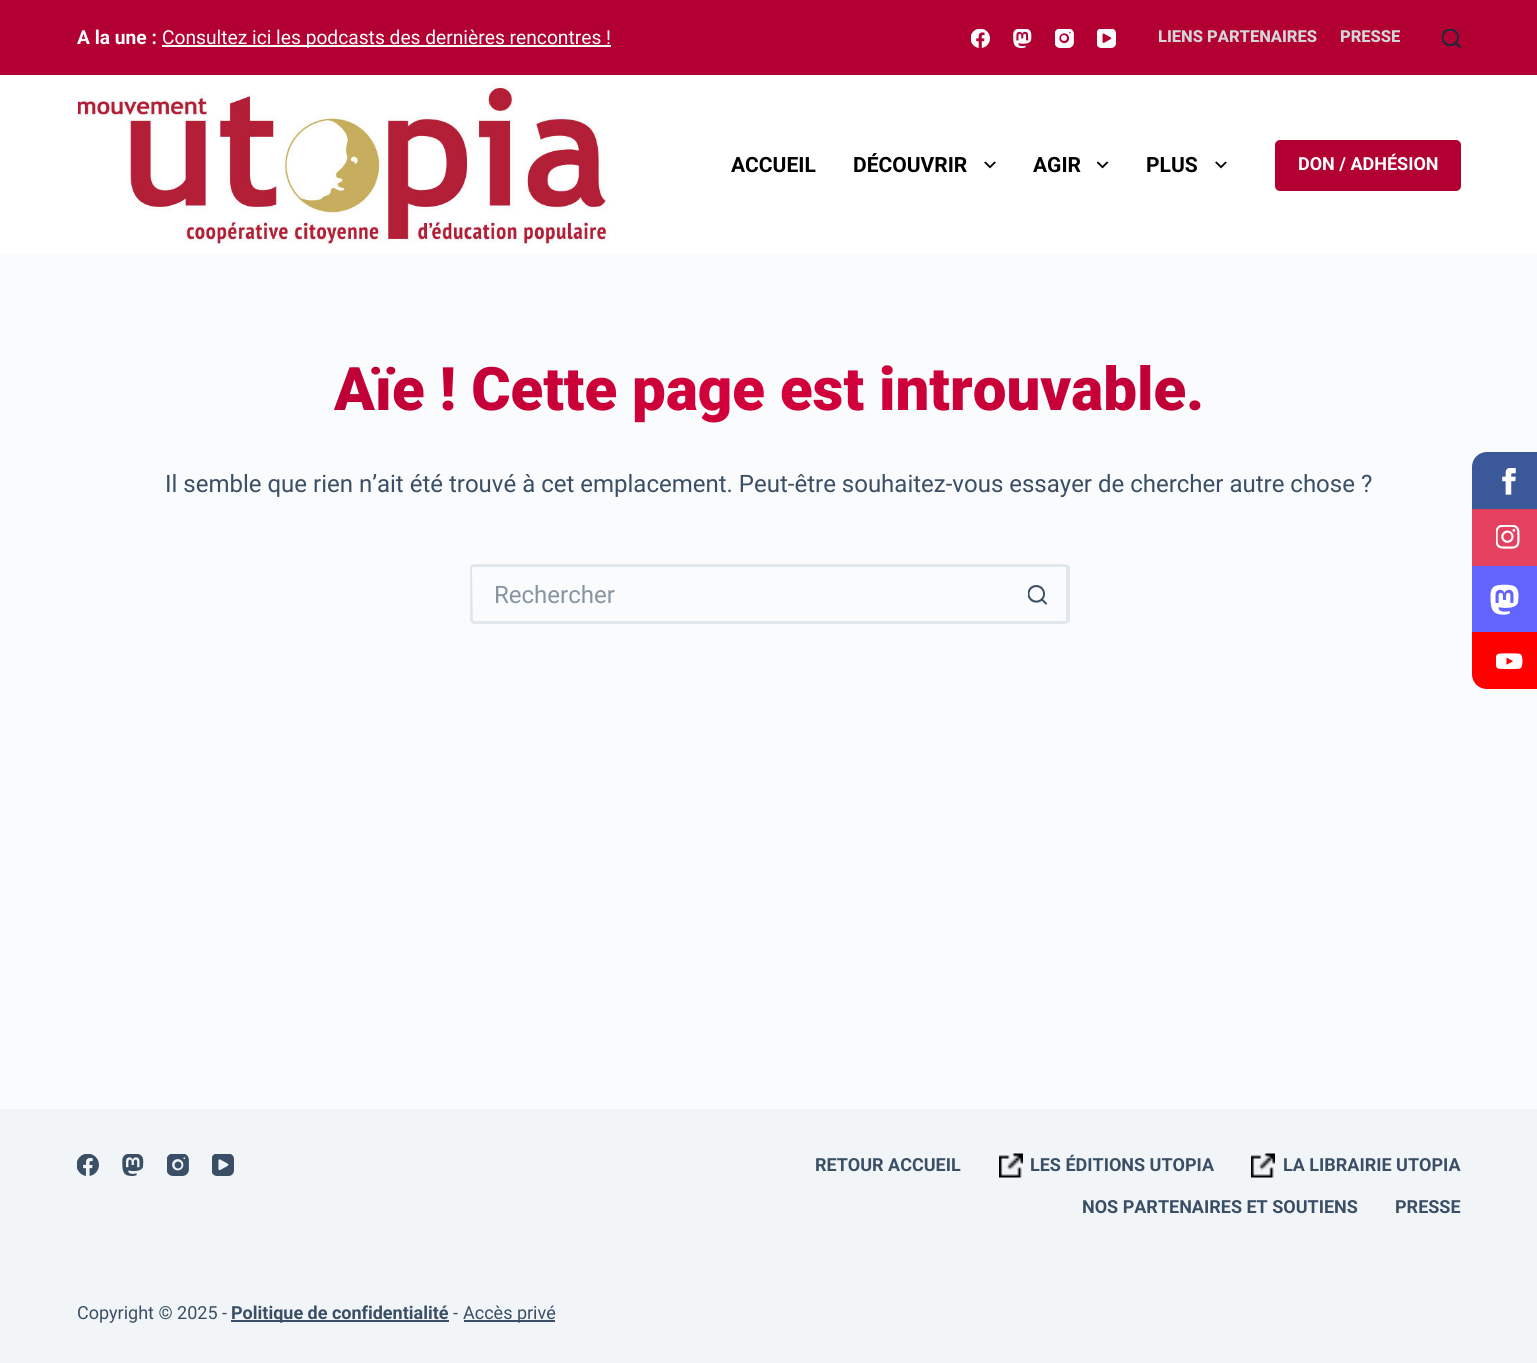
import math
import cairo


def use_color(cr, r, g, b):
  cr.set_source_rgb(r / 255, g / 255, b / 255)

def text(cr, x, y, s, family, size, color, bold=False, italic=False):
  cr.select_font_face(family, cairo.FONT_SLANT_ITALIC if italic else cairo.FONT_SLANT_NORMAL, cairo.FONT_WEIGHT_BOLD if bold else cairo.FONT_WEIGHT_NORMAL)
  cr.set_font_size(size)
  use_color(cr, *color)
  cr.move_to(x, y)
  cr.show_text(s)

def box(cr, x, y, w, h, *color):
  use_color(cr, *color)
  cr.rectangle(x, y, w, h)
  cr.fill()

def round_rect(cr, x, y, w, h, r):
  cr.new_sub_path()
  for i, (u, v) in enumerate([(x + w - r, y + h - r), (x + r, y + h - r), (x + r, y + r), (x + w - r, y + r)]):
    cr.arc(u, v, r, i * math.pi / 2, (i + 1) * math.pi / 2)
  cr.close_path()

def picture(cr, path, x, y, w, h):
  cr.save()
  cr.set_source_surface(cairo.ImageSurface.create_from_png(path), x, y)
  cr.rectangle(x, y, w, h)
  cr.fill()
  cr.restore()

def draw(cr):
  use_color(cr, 250, 251, 252)
  cr.paint()
  box(cr, 0, 0, 1537, 75, 179, 0, 50)
  box(cr, 162, 45, 449, 2, 255, 255, 255)
  picture(cr, "img_01.png", 971, 29, 19, 19)
  picture(cr, "img_02.png", 1013, 29, 19, 19)
  picture(cr, "img_03.png", 1055, 29, 19, 19)
  picture(cr, "img_04.png", 1097, 29, 19, 19)
  picture(cr, "img_05.png", 1442, 29, 19, 19)
  box(cr, 0, 75, 1537, 180, 255, 255, 255)
  picture(cr, "img_06.png", 76, 84, 533, 162)
  picture(cr, "img_07.png", 984, 161, 12, 8)
  picture(cr, "img_08.png", 1097, 161, 12, 8)
  picture(cr, "img_07.png", 1215, 161, 12, 8)
  use_color(cr, 179, 0, 50)
  round_rect(cr, 1275, 140, 186, 51, 5)
  cr.fill()
  use_color(cr, 225, 232, 237)
  cr.set_fill_rule(cairo.FILL_RULE_EVEN_ODD)
  cr.new_path()
  cr.move_to(474, 564)
  cr.line_to(1010, 564)
  cr.line_to(1010, 624)
  cr.line_to(474, 624)
  cr.curve_to(472, 624, 470, 622, 470, 620)
  cr.line_to(470, 568)
  cr.curve_to(470, 566, 472, 564, 474, 564)
  cr.close_path()
  cr.move_to(474, 567)
  cr.line_to(1010, 567)
  cr.line_to(1010, 621)
  cr.line_to(474, 621)
  cr.line_to(473, 620)
  cr.line_to(472, 568)
  cr.curve_to(473, 568, 473, 567, 474, 567)
  cr.close_path()
  cr.fill()
  cr.new_path()
  cr.move_to(1010, 564)
  cr.line_to(1065, 564)
  cr.curve_to(1067, 564, 1070, 566, 1070, 568)
  cr.line_to(1070, 620)
  cr.curve_to(1070, 622, 1067, 624, 1065, 624)
  cr.line_to(1010, 624)
  cr.close_path()
  cr.move_to(1010, 567)
  cr.line_to(1065, 567)
  cr.curve_to(1066, 567, 1066, 568, 1066, 568)
  cr.line_to(1066, 620)
  cr.curve_to(1066, 620, 1066, 621, 1065, 621)
  cr.line_to(1010, 621)
  cr.close_path()
  cr.fill()
  picture(cr, "img_09.png", 1028, 585, 19, 20)
  box(cr, 0, 1109, 1537, 254, 242, 245, 247)
  picture(cr, "img_10.png", 77, 1154, 22, 22)
  picture(cr, "img_11.png", 122, 1154, 22, 22)
  picture(cr, "img_12.png", 167, 1154, 22, 22)
  picture(cr, "img_13.png", 212, 1154, 22, 22)
  picture(cr, "img_14.png", 999, 1153, 24, 25)
  picture(cr, "img_15.png", 1251, 1153, 24, 25)
  box(cr, 231, 1320, 218, 2, 58, 79, 102)
  box(cr, 464, 1320, 91, 2, 58, 79, 102)
  use_color(cr, 59, 89, 152)
  cr.new_path()
  cr.move_to(1487, 452)
  cr.line_to(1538, 452)
  cr.line_to(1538, 509)
  cr.line_to(1472, 509)
  cr.line_to(1472, 467)
  cr.curve_to(1472, 458.5, 1478.5, 452, 1487, 452)
  cr.close_path()
  cr.fill()
  picture(cr, "img_16.png", 1502, 468, 14, 27)
  box(cr, 1472, 509, 65, 57, 228, 64, 95)
  picture(cr, "img_17.png", 1496, 525, 24, 24)
  box(cr, 1472, 566, 65, 66, 99, 100, 255)
  picture(cr, "img_18.png", 1490, 584, 29, 31)
  use_color(cr, 255, 0, 0)
  cr.new_path()
  cr.move_to(1472, 632)
  cr.line_to(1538, 632)
  cr.line_to(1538, 689)
  cr.line_to(1487, 689)
  cr.curve_to(1478.5, 689, 1472, 682.5, 1472, 674)
  cr.close_path()
  cr.fill()
  picture(cr, "img_19.png", 1496, 653, 27, 17)
  text(cr, 77, 44, "A la une :", "Roboto", 19.2, (255, 255, 255), bold=True)
  text(cr, 162, 44, "Consultez ici les podcasts des dernières rencontres !", "Roboto", 19.2, (255, 255, 255))
  text(cr, 1158, 42, "LIENS PARTENAIRES", "Roboto ExtraBold", 16.5, (212, 214, 216))
  text(cr, 1340, 42, "PRESSE", "Roboto ExtraBold", 16.5, (212, 214, 216))
  text(cr, 731, 172, "ACCUEIL", "Roboto", 21, (0, 0, 0), bold=True)
  text(cr, 853, 172, "DÉCOUVRIR", "Roboto", 21, (0, 0, 0), bold=True)
  text(cr, 1033, 172, "AGIR", "Roboto", 21, (0, 0, 0), bold=True)
  text(cr, 1146, 172, "PLUS", "Roboto", 21, (0, 0, 0), bold=True)
  text(cr, 1298, 170, "DON / ADHÉSION", "Roboto", 18, (255, 255, 255), bold=True)
  cr.select_font_face("Roboto Black")
  cr.set_font_size(60)
  gradient = cairo.RadialGradient(769, 390, 0, 769, 390, 693)
  gradient.add_color_stop_rgba(0, 0.827, 0, 0.231, 1)
  gradient.add_color_stop_rgba(1, 0.702, 0, 0.2, 1)
  cr.set_source(gradient)
  cr.move_to(334, 410)
  cr.show_text("Aïe ! Cette page est introuvable.")
  text(cr, 165, 492, "Il semble que rien n’ait été trouvé à cet emplacement. Peut-être souhaitez-vous essayer de chercher autre chose ?", "Roboto", 24, (58, 79, 102))
  text(cr, 494, 603, "Rechercher", "Roboto", 24, (135, 148, 162))
  text(cr, 815, 1171, "RETOUR ACCUEIL", "Roboto", 18, (58, 79, 102), bold=True)
  text(cr, 1030, 1171, "LES ÉDITIONS UTOPIA", "Roboto", 18, (58, 79, 102), bold=True)
  text(cr, 1283, 1171, "LA LIBRAIRIE UTOPIA", "Roboto", 18, (58, 79, 102), bold=True)
  text(cr, 1082, 1213, "NOS PARTENAIRES ET SOUTIENS", "Roboto", 18, (58, 79, 102), bold=True)
  text(cr, 1395, 1213, "PRESSE", "Roboto", 18, (58, 79, 102), bold=True)
  text(cr, 77, 1319, "Copyright © 2025 -", "Roboto", 18, (58, 79, 102))
  text(cr, 231, 1319, "Politique de confidentialité", "Roboto", 18, (58, 79, 102), bold=True)
  text(cr, 453, 1319, "-", "Roboto", 18, (58, 79, 102))
  text(cr, 463, 1319, "Accès privé", "Roboto", 18, (58, 79, 102))


surface = cairo.ImageSurface(cairo.FORMAT_RGB24, 1537, 1363)
cr = cairo.Context(surface)
options = cairo.FontOptions()
options.set_hint_metrics(cairo.HINT_METRICS_OFF)
options.set_hint_style(cairo.HINT_STYLE_NONE)
cr.set_font_options(options)
cr.set_miter_limit(4)
draw(cr)
surface.write_to_png("out.png")
